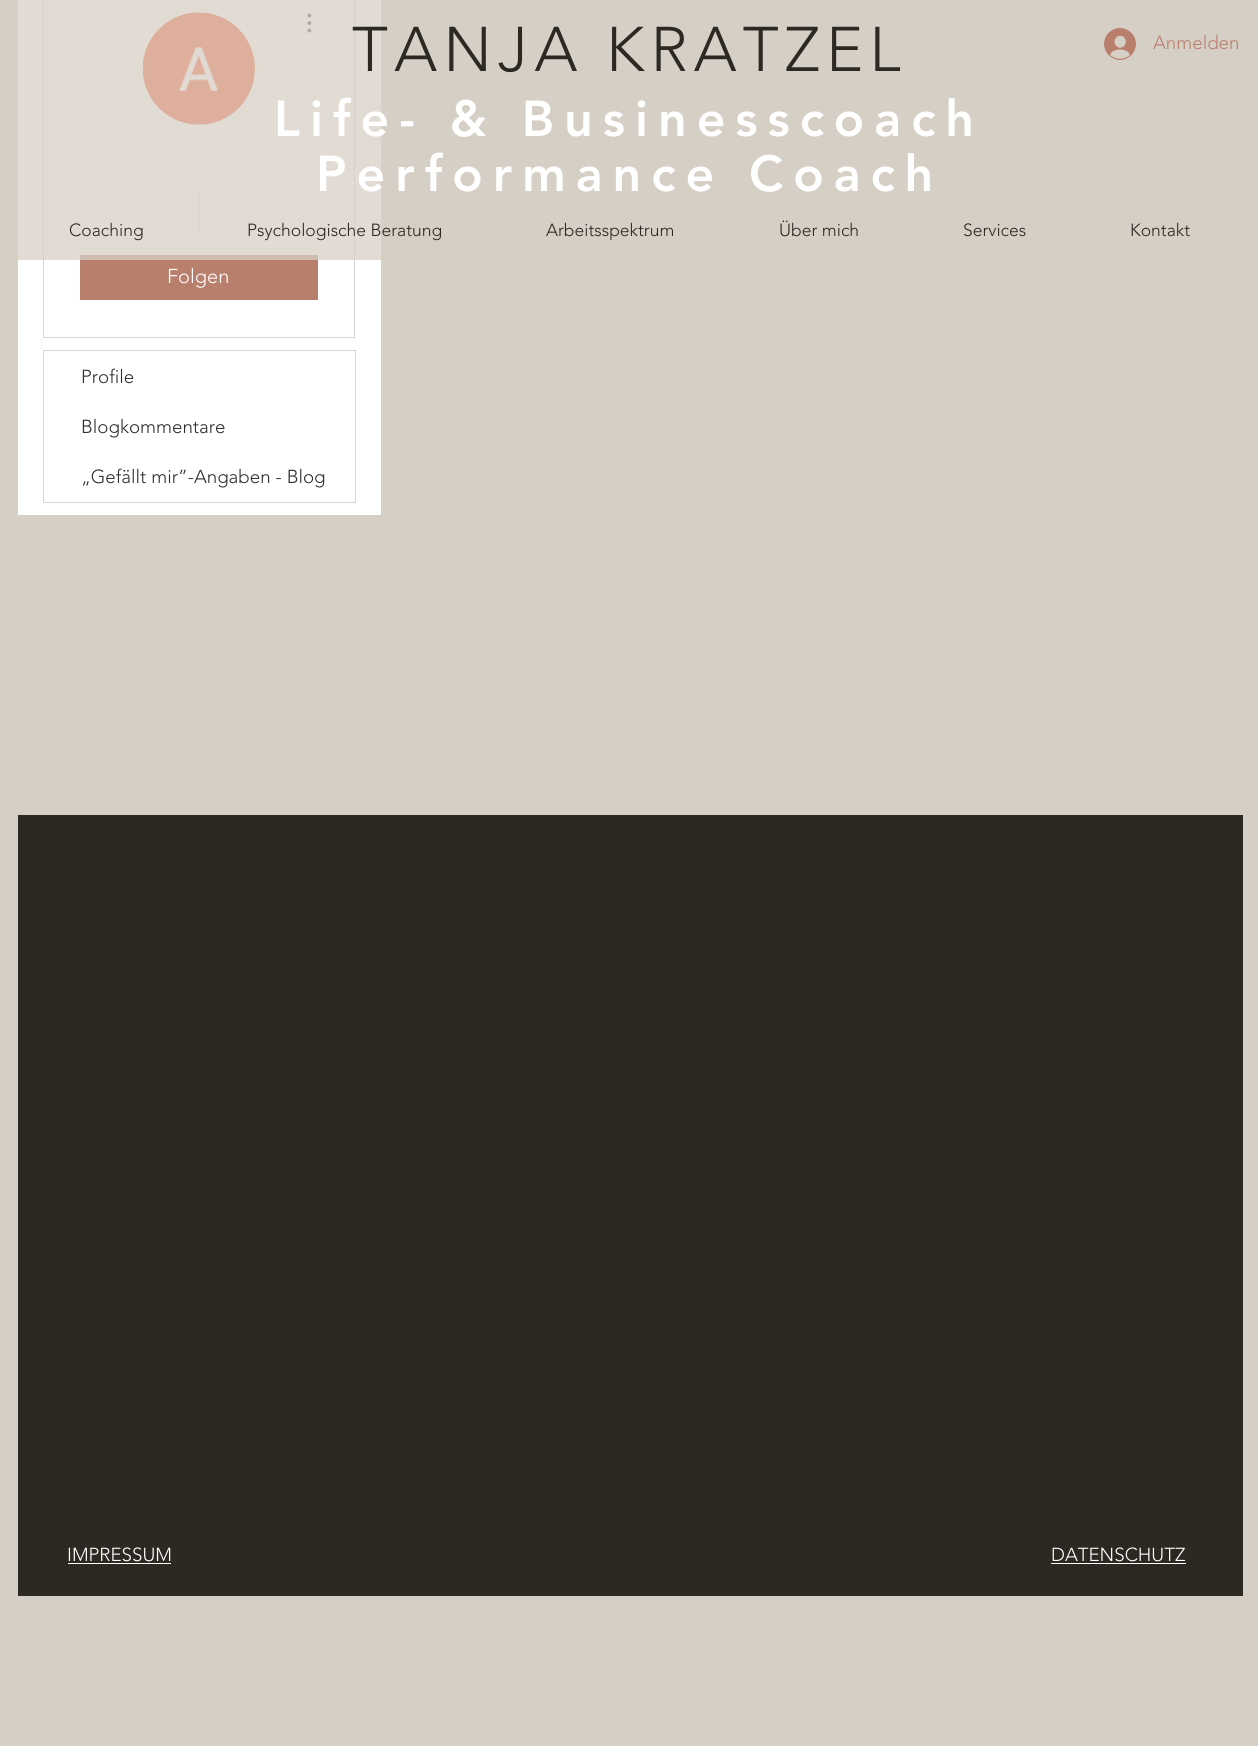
import math
import cairo


def use_color(cr, r, g, b):
  cr.set_source_rgb(r / 255, g / 255, b / 255)

def text(cr, x, y, s, family, size, color, bold=False, italic=False):
  cr.select_font_face(family, cairo.FONT_SLANT_ITALIC if italic else cairo.FONT_SLANT_NORMAL, cairo.FONT_WEIGHT_BOLD if bold else cairo.FONT_WEIGHT_NORMAL)
  cr.set_font_size(size)
  use_color(cr, *color)
  cr.move_to(x, y)
  cr.show_text(s)

def spaced_text(cr, x, y, s, letter, word):
  cr.move_to(x, y)
  for ch in s:
    cr.show_text(ch)
    cr.rel_move_to(letter + word * (ch == ' '), 0)

def box(cr, x, y, w, h, *color):
  use_color(cr, *color)
  cr.rectangle(x, y, w, h)
  cr.fill()

def picture(cr, path, x, y, w, h):
  cr.save()
  cr.set_source_surface(cairo.ImageSurface.create_from_png(path), x, y)
  cr.rectangle(x, y, w, h)
  cr.fill()
  cr.restore()

def draw(cr):
  use_color(cr, 214, 207, 197)
  cr.paint()
  box(cr, 18, 0, 363, 515, 255, 255, 255)
  cr.rectangle(43.5, -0.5, 311, 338)
  use_color(cr, 213, 213, 214)
  cr.set_line_width(1)
  cr.stroke()
  use_color(cr, 216, 216, 216)
  cr.arc(199, 69, 56, 0, 2 * math.pi)
  cr.fill()
  picture(cr, "img_02.png", 142, 12, 113, 113)
  picture(cr, "img_03.png", 307, 13, 5, 20)
  box(cr, 198, 193, 1, 40, 213, 213, 214)
  box(cr, 80, 255, 238, 45, 185, 127, 109)
  cr.set_source_rgba(0.839, 0.812, 0.773, 0.75)
  cr.rectangle(18, 0, 363, 260)
  cr.fill()
  picture(cr, "img_01.png", 1104, 28, 32, 32)
  cr.rectangle(43.5, 350.5, 312, 152)
  use_color(cr, 213, 213, 214)
  cr.stroke()
  box(cr, 18, 815, 1225, 781, 44, 40, 34)
  box(cr, 68, 1563, 103, 1, 255, 255, 255)
  box(cr, 1051, 1563, 135, 1, 255, 255, 255)
  cr.select_font_face("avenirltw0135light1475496 Light")
  cr.set_font_size(62.5)
  use_color(cr, 44, 40, 34)
  spaced_text(cr, 352, 71, "TANJA KRATZEL", 6.25, 0)
  text(cr, 1153, 49, "Anmelden", "avenirltw0135light1475496 Light", 18.75, (185, 127, 109))
  cr.select_font_face("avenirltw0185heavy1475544 Black")
  cr.set_font_size(50)
  use_color(cr, 255, 255, 255)
  spaced_text(cr, 274, 136, "Life- & Businesscoach", 10, 0)
  spaced_text(cr, 316, 191, "Performance Coach", 10, 0)
  text(cr, 69, 236, "Coaching", "avenirltw0135light1475496 Light", 17.5, (44, 40, 34))
  text(cr, 247, 236, "Psychologische Beratung", "avenirltw0135light1475496 Light", 17.5, (44, 40, 34))
  text(cr, 546, 236, "Arbeitsspektrum", "avenirltw0135light1475496 Light", 17.5, (44, 40, 34))
  text(cr, 779, 236, "Über mich", "avenirltw0135light1475496 Light", 17.5, (44, 40, 34))
  text(cr, 963, 236, "Services", "avenirltw0135light1475496 Light", 17.5, (44, 40, 34))
  text(cr, 1130, 236, "Kontakt", "avenirltw0135light1475496 Light", 17.5, (44, 40, 34))
  text(cr, 167, 283, "Folgen", "avenirltw0135light1475496 Light", 20, (255, 255, 255))
  text(cr, 81, 383, "Profile", "avenirltw0135light1475496 Light", 18.75, (47, 47, 48))
  text(cr, 81, 433, "Blogkommentare", "avenirltw0135light1475496 Light", 18.75, (47, 47, 48))
  text(cr, 81, 483, "„Gefällt mir”-Angaben - Blog", "avenirltw0135light1475496 Light", 18.75, (47, 47, 48))
  text(cr, 67, 1561, "IMPRESSUM", "avenirltw0135light1475496 Light", 18.75, (255, 255, 255))
  text(cr, 1051, 1561, "DATENSCHUTZ", "avenirltw0135light1475496 Light", 18.75, (255, 255, 255))


surface = cairo.ImageSurface(cairo.FORMAT_RGB24, 1258, 1746)
cr = cairo.Context(surface)
options = cairo.FontOptions()
options.set_hint_metrics(cairo.HINT_METRICS_OFF)
options.set_hint_style(cairo.HINT_STYLE_NONE)
cr.set_font_options(options)
cr.set_miter_limit(4)
draw(cr)
surface.write_to_png("out.png")
